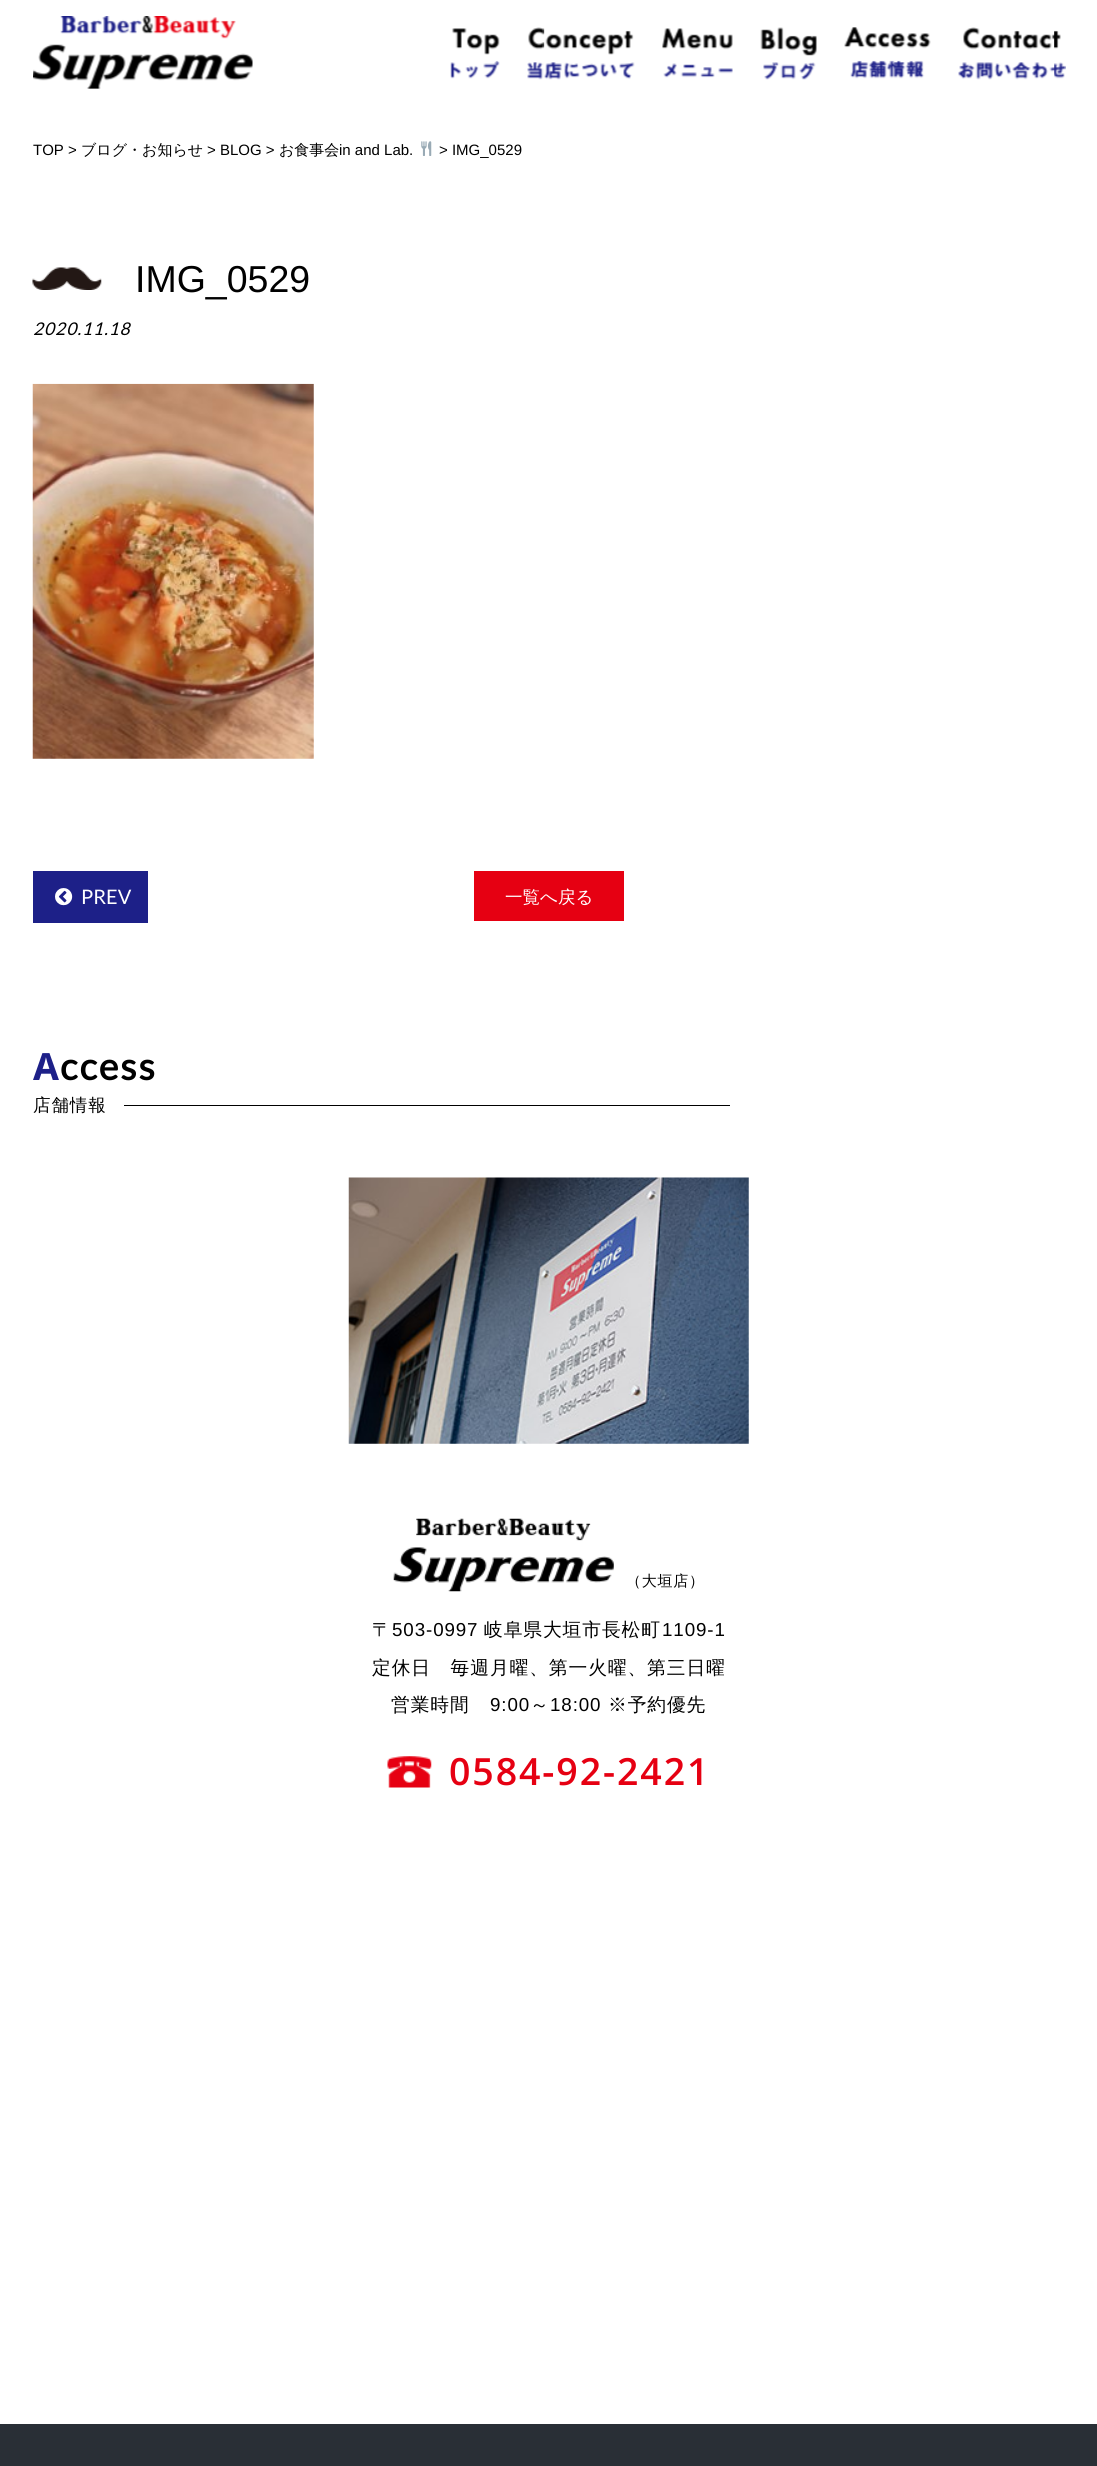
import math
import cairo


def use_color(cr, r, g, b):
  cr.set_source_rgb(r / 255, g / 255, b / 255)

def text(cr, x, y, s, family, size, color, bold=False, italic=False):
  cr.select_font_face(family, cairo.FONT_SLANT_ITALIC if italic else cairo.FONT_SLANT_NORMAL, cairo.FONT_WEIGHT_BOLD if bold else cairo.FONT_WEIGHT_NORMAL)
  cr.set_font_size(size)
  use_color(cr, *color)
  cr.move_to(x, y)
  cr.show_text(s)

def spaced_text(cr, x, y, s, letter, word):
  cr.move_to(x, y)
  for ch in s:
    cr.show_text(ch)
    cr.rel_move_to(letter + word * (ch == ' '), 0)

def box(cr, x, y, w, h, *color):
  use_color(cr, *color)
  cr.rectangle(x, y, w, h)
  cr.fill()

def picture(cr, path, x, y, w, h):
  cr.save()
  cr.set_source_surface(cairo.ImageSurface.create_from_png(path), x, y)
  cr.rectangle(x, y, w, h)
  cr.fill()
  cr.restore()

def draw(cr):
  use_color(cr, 255, 255, 255)
  cr.paint()
  picture(cr, "img_01.png", 33, 16, 220, 73)
  picture(cr, "img_02.png", 450, 28, 50, 51)
  picture(cr, "img_03.png", 527, 27, 108, 53)
  picture(cr, "img_04.png", 662, 28, 71, 50)
  picture(cr, "img_05.png", 760, 27, 57, 53)
  picture(cr, "img_06.png", 844, 27, 87, 52)
  picture(cr, "img_07.png", 958, 27, 108, 53)
  picture(cr, "img_08.png", 421, 141, 11, 15)
  picture(cr, "img_09.png", 32, 267, 70, 23)
  picture(cr, "img_10.png", 32, 383, 282, 376)
  box(cr, 33, 871, 115, 52, 29, 32, 136)
  picture(cr, "img_11.png", 55, 888, 18, 18)
  box(cr, 474, 871, 150, 50, 230, 0, 18)
  box(cr, 124, 1105, 606, 1, 0, 0, 0)
  picture(cr, "img_12.png", 348, 1177, 401, 267)
  picture(cr, "img_13.png", 393, 1518, 221, 74)
  picture(cr, "img_14.png", 387, 1756, 45, 32)
  box(cr, 0, 2424, 1097, 42, 41, 47, 54)
  text(cr, 33, 155, "TOP >", "Liberation Sans", 15, (0, 0, 0))
  text(cr, 81, 155, "ブログ・お知らせ", "WenQuanYi Zen Hei Medium", 15, (0, 0, 0))
  text(cr, 207, 155, "> BLOG >", "Liberation Sans", 15, (0, 0, 0))
  text(cr, 279, 155, "お食事会", "WenQuanYi Zen Hei Medium", 15, (0, 0, 0))
  text(cr, 339, 155, "in and Lab.", "Liberation Sans", 15, (0, 0, 0))
  text(cr, 439, 155, "> IMG_0529", "Liberation Sans", 15, (0, 0, 0))
  text(cr, 135, 292, "IMG_0529", "Liberation Sans", 37.5, (0, 0, 0))
  cr.select_font_face("Lato", cairo.FONT_SLANT_ITALIC)
  cr.set_font_size(17.5)
  spaced_text(cr, 33, 335, "2020.11.18", 0.9, 0)
  text(cr, 81, 904, "PREV", "Lato", 20, (255, 255, 255))
  text(cr, 505, 903, "一覧へ戻る", "WenQuanYi Zen Hei Medium", 17.5, (255, 255, 255))
  cr.select_font_face("Noto Sans", cairo.FONT_SLANT_NORMAL, cairo.FONT_WEIGHT_BOLD)
  cr.set_font_size(37.5)
  use_color(cr, 29, 32, 136)
  spaced_text(cr, 33, 1080, "A", 1.9, 0)
  cr.select_font_face("Lato", cairo.FONT_SLANT_NORMAL, cairo.FONT_WEIGHT_BOLD)
  use_color(cr, 0, 0, 0)
  spaced_text(cr, 60, 1080, "ccess", 1.9, 0)
  cr.select_font_face("WenQuanYi Zen Hei Medium")
  cr.set_font_size(17.5)
  spaced_text(cr, 33, 1111, "店舗情報", 0.9, 0)
  cr.set_font_size(15)
  spaced_text(cr, 626, 1586, "（大垣店）", 0.75, 0)
  cr.set_font_size(18.75)
  spaced_text(cr, 372, 1636, "〒", 0.9, 0)
  cr.select_font_face("Liberation Sans")
  spaced_text(cr, 392, 1636, "503-0997", 0.9, 0)
  cr.select_font_face("WenQuanYi Zen Hei Medium")
  spaced_text(cr, 484, 1636, "岐阜県大垣市長松町", 0.9, 0)
  cr.select_font_face("Liberation Sans")
  spaced_text(cr, 662, 1636, "1109-1", 0.9, 0)
  cr.select_font_face("WenQuanYi Zen Hei Medium")
  spaced_text(cr, 372, 1674, "定休日　毎週月曜、第一火曜、第三日曜", 0.9, 0)
  spaced_text(cr, 391, 1711, "営業時間", 0.9, 0)
  cr.select_font_face("Liberation Sans")
  spaced_text(cr, 490, 1711, "9:00", 0.9, 0)
  cr.select_font_face("WenQuanYi Zen Hei Medium")
  spaced_text(cr, 530, 1711, "～", 0.9, 0)
  cr.select_font_face("Liberation Sans")
  spaced_text(cr, 550, 1711, "18:00", 0.9, 0)
  cr.select_font_face("WenQuanYi Zen Hei Medium")
  spaced_text(cr, 608, 1711, "※予約優先", 0.9, 0)
  cr.select_font_face("Open Sans SemiBold")
  cr.set_font_size(37.5)
  use_color(cr, 230, 0, 18)
  spaced_text(cr, 449, 1785, "0584-92-2421", 1.9, 0)


surface = cairo.ImageSurface(cairo.FORMAT_RGB24, 1097, 2466)
cr = cairo.Context(surface)
options = cairo.FontOptions()
options.set_hint_metrics(cairo.HINT_METRICS_OFF)
options.set_hint_style(cairo.HINT_STYLE_NONE)
cr.set_font_options(options)
cr.set_miter_limit(4)
draw(cr)
surface.write_to_png("out.png")
